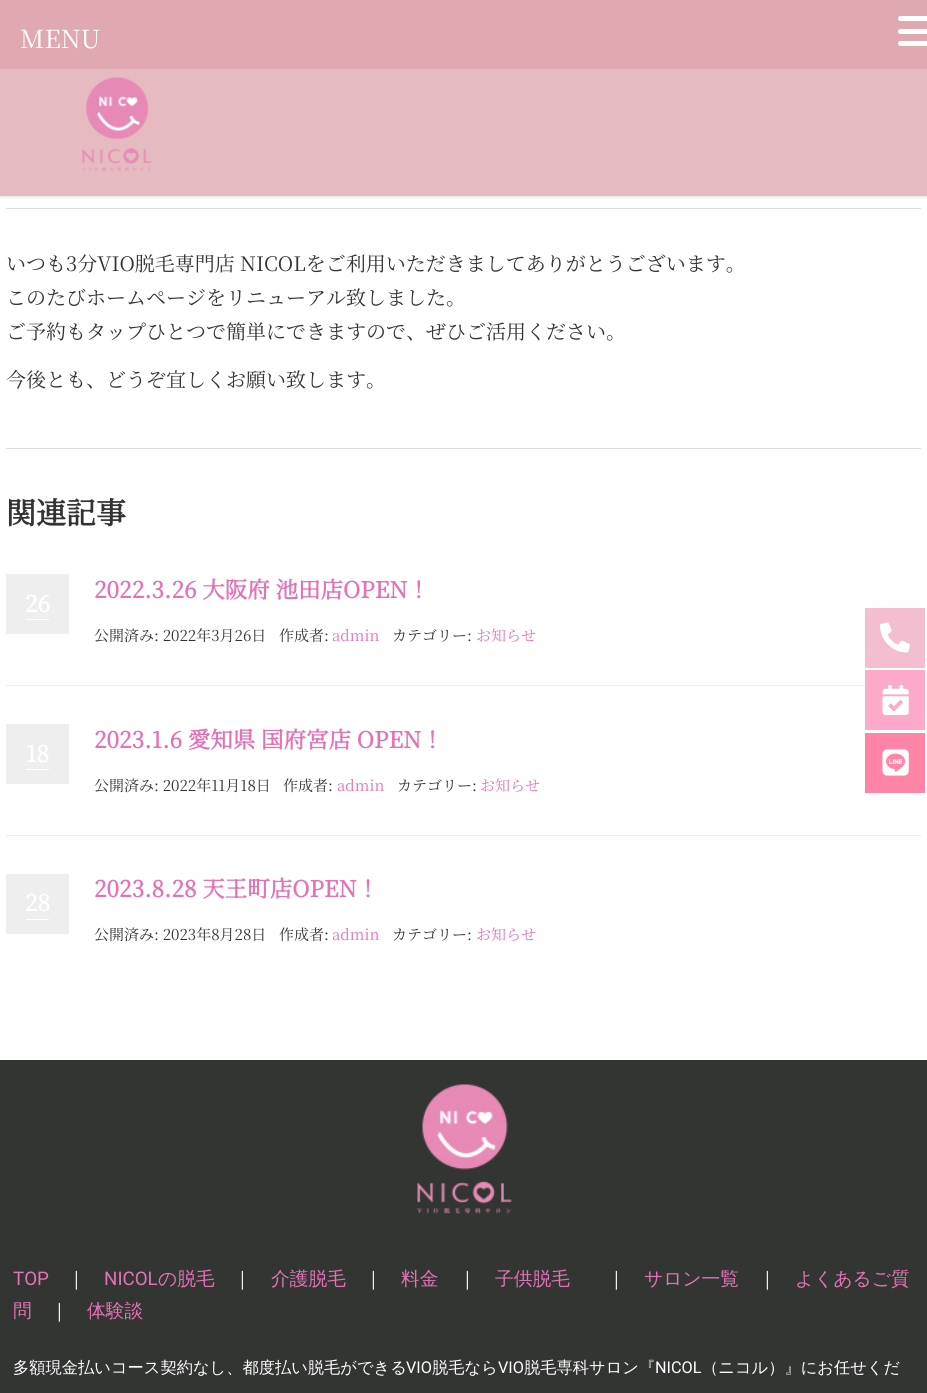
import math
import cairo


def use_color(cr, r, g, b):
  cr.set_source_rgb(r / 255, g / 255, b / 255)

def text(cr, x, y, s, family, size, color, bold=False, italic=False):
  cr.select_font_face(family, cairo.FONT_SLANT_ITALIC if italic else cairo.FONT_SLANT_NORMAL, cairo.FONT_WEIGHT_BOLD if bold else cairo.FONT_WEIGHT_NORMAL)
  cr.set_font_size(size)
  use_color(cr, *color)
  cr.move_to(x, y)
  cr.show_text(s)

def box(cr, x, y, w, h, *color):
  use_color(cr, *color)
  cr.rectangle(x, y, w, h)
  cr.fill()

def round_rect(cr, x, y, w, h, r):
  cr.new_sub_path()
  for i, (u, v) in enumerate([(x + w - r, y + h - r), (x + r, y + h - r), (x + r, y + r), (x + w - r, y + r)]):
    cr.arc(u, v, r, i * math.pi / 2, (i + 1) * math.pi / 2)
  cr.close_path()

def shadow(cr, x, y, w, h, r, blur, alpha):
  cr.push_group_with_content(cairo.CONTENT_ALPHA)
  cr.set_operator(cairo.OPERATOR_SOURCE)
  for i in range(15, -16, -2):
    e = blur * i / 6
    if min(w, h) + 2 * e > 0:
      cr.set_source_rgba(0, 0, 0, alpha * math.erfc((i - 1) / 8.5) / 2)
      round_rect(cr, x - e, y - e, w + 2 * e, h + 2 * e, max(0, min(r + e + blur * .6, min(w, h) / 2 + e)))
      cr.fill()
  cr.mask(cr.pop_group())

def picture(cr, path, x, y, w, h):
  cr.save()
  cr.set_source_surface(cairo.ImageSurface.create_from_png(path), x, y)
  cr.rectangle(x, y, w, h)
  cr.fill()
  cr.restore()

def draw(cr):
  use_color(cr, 255, 255, 255)
  cr.paint()
  cr.save()
  cr.rectangle(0, 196, 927, 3)
  cr.clip()
  use_color(cr, 0, 0, 0)
  shadow(cr, 0, 53, 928, 143, 0, 2, 0.2)
  cr.restore()
  box(cr, 0, 0, 927, 69, 224, 169, 178)
  use_color(cr, 255, 255, 255)
  round_rect(cr, 898, 29, 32, 5, 2.5)
  cr.fill()
  round_rect(cr, 898, 16, 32, 5, 2.5)
  cr.fill()
  round_rect(cr, 898, 41, 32, 5, 2.5)
  cr.fill()
  cr.set_source_rgba(0.878, 0.663, 0.698, 0.8)
  cr.rectangle(0, 69, 927, 127)
  cr.fill()
  picture(cr, "img_01.png", 82, 77, 70, 95)
  box(cr, 6, 208, 915, 1, 221, 221, 221)
  box(cr, 6, 448, 915, 1, 221, 221, 221)
  box(cr, 6, 685, 859, 1, 238, 238, 238)
  box(cr, 6, 574, 63, 60, 238, 238, 238)
  box(cr, 26, 619, 23, 1, 255, 255, 255)
  box(cr, 6, 835, 915, 1, 238, 238, 238)
  box(cr, 6, 724, 63, 60, 238, 238, 238)
  box(cr, 26, 769, 23, 1, 255, 255, 255)
  box(cr, 6, 874, 63, 60, 238, 238, 238)
  box(cr, 26, 919, 23, 1, 255, 255, 255)
  box(cr, 0, 1060, 927, 333, 51, 53, 51)
  picture(cr, "img_02.png", 417, 1084, 95, 130)
  box(cr, 865, 608, 60, 60, 244, 190, 209)
  picture(cr, "img_03.png", 880, 622, 30, 31)
  box(cr, 865, 670, 60, 60, 252, 169, 202)
  picture(cr, "img_04.png", 882, 685, 27, 30)
  box(cr, 865, 733, 60, 60, 255, 132, 165)
  picture(cr, "img_05.png", 882, 749, 27, 27)
  text(cr, 20, 48, "MENU", "Noto Serif JP ExtraLight", 25, (255, 255, 255))
  text(cr, 6, 271, "いつも3分VIO脱毛専門店 NICOLをご利用いただきましてありがとうございます。", "Noto Serif JP ExtraLight", 20, (51, 51, 51))
  text(cr, 6, 305, "このたびホームページをリニューアル致しました。", "Noto Serif JP ExtraLight", 20, (51, 51, 51))
  text(cr, 6, 339, "ご予約もタップひとつで簡単にできますので、ぜひご活用ください。", "Noto Serif JP ExtraLight", 20, (51, 51, 51))
  text(cr, 6, 387, "今後とも、どうぞ宜しくお願い致します。", "Noto Serif JP ExtraLight", 20, (51, 51, 51))
  text(cr, 6, 524, "関連記事", "Noto Serif JP", 30, (51, 51, 51), bold=True)
  text(cr, 25, 612, "26", "Noto Serif JP", 22.5, (255, 255, 255), bold=True)
  text(cr, 94, 598, "2022.3.26 大阪府 池田店OPEN！", "Noto Serif JP", 22.5, (229, 114, 183), bold=True)
  text(cr, 94, 641, "公開済み: 2022年3月26日", "Noto Serif JP ExtraLight", 15, (51, 51, 51))
  text(cr, 279, 641, "作成者:", "Noto Serif JP ExtraLight", 15, (51, 51, 51))
  text(cr, 332, 641, "admin", "Noto Serif JP ExtraLight", 15, (229, 114, 183))
  text(cr, 392, 641, "カテゴリー:", "Noto Serif JP ExtraLight", 15, (51, 51, 51))
  text(cr, 476, 641, "お知らせ", "Noto Serif JP ExtraLight", 15, (229, 114, 183))
  text(cr, 26, 762, "18", "Noto Serif JP", 22.5, (255, 255, 255), bold=True)
  text(cr, 94, 748, "2023.1.6 愛知県 国府宮店 OPEN！", "Noto Serif JP", 22.5, (229, 114, 183), bold=True)
  text(cr, 94, 791, "公開済み: 2022年11月18日", "Noto Serif JP ExtraLight", 15, (51, 51, 51))
  text(cr, 283, 791, "作成者:", "Noto Serif JP ExtraLight", 15, (51, 51, 51))
  text(cr, 337, 791, "admin", "Noto Serif JP ExtraLight", 15, (229, 114, 183))
  text(cr, 397, 791, "カテゴリー:", "Noto Serif JP ExtraLight", 15, (51, 51, 51))
  text(cr, 480, 791, "お知らせ", "Noto Serif JP ExtraLight", 15, (229, 114, 183))
  text(cr, 25, 911, "28", "Noto Serif JP", 22.5, (255, 255, 255), bold=True)
  text(cr, 94, 897, "2023.8.28 天王町店OPEN！", "Noto Serif JP", 22.5, (229, 114, 183), bold=True)
  text(cr, 94, 940, "公開済み: 2023年8月28日", "Noto Serif JP ExtraLight", 15, (51, 51, 51))
  text(cr, 279, 940, "作成者:", "Noto Serif JP ExtraLight", 15, (51, 51, 51))
  text(cr, 332, 940, "admin", "Noto Serif JP ExtraLight", 15, (229, 114, 183))
  text(cr, 392, 940, "カテゴリー:", "Noto Serif JP ExtraLight", 15, (51, 51, 51))
  text(cr, 476, 940, "お知らせ", "Noto Serif JP ExtraLight", 15, (229, 114, 183))
  text(cr, 13, 1285, "TOP", "Roboto", 18.75, (229, 114, 183))
  text(cr, 67, 1285, "｜", "WenQuanYi Zen Hei Medium", 18.75, (255, 255, 255))
  text(cr, 104, 1285, "NICOL", "Roboto", 18.75, (229, 114, 183))
  text(cr, 158, 1285, "の脱毛", "WenQuanYi Zen Hei Medium", 18.75, (229, 114, 183))
  text(cr, 233, 1285, "｜", "WenQuanYi Zen Hei Medium", 18.75, (255, 255, 255))
  text(cr, 271, 1285, "介護脱毛", "WenQuanYi Zen Hei Medium", 18.75, (229, 114, 183))
  text(cr, 364, 1285, "｜", "WenQuanYi Zen Hei Medium", 18.75, (255, 255, 255))
  text(cr, 401, 1285, "料金", "WenQuanYi Zen Hei Medium", 18.75, (229, 114, 183))
  text(cr, 458, 1285, "｜", "WenQuanYi Zen Hei Medium", 18.75, (255, 255, 255))
  text(cr, 495, 1285, "子供脱毛", "WenQuanYi Zen Hei Medium", 18.75, (229, 114, 183))
  text(cr, 607, 1285, "｜", "WenQuanYi Zen Hei Medium", 18.75, (255, 255, 255))
  text(cr, 644, 1285, "サロン一覧", "WenQuanYi Zen Hei Medium", 18.75, (229, 114, 183))
  text(cr, 758, 1285, "｜", "WenQuanYi Zen Hei Medium", 18.75, (255, 255, 255))
  text(cr, 795, 1285, "よくあるご質", "WenQuanYi Zen Hei Medium", 18.75, (229, 114, 183))
  text(cr, 13, 1317, "問", "WenQuanYi Zen Hei Medium", 18.75, (229, 114, 183))
  text(cr, 50, 1317, "｜", "WenQuanYi Zen Hei Medium", 18.75, (255, 255, 255))
  text(cr, 87, 1317, "体験談", "WenQuanYi Zen Hei Medium", 18.75, (229, 114, 183))
  text(cr, 13, 1373, "多額現⾦払いコース契約なし、都度払い脱⽑ができる", "WenQuanYi Zen Hei Medium", 16.25, (255, 255, 255))
  text(cr, 406, 1373, "VIO", "Roboto", 16.25, (255, 255, 255))
  text(cr, 432, 1373, "脱毛なら", "WenQuanYi Zen Hei Medium", 16.25, (255, 255, 255))
  text(cr, 498, 1373, "VIO", "Roboto", 16.25, (255, 255, 255))
  text(cr, 524, 1373, "脱毛専科サロン『", "WenQuanYi Zen Hei Medium", 16.25, (255, 255, 255))
  text(cr, 655, 1373, "NICOL", "Roboto", 16.25, (255, 255, 255))
  text(cr, 702, 1373, "（ニコル）』にお任せくだ", "WenQuanYi Zen Hei Medium", 16.25, (255, 255, 255))


surface = cairo.ImageSurface(cairo.FORMAT_RGB24, 927, 1393)
cr = cairo.Context(surface)
options = cairo.FontOptions()
options.set_hint_metrics(cairo.HINT_METRICS_OFF)
options.set_hint_style(cairo.HINT_STYLE_NONE)
cr.set_font_options(options)
cr.set_miter_limit(4)
draw(cr)
surface.write_to_png("out.png")
